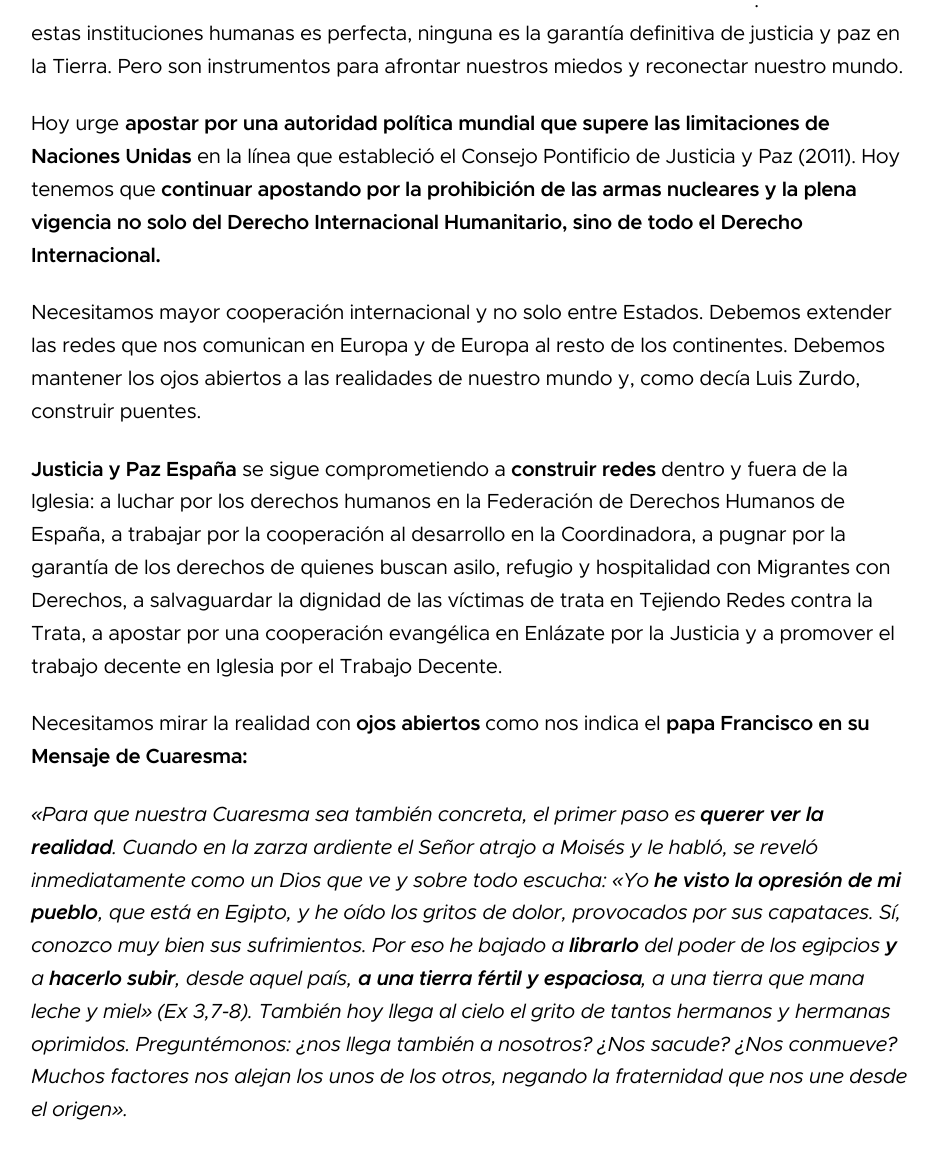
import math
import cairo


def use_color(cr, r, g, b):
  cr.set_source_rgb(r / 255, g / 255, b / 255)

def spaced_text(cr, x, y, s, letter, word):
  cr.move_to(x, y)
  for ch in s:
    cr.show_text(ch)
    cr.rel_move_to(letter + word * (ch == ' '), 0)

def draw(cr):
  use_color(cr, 255, 255, 255)
  cr.paint()
  cr.select_font_face("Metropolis")
  cr.set_font_size(20.5)
  use_color(cr, 0, 0, 0)
  spaced_text(cr, 754, 7, ".", -0.4, 0)
  spaced_text(cr, 31, 40, "estas instituciones humanas es perfecta, ninguna es la garantía definitiva de justicia y paz en", -0.4, 0)
  spaced_text(cr, 31, 73, "la Tierra. Pero son instrumentos para afrontar nuestros miedos y reconectar nuestro mundo.", -0.4, 0)
  spaced_text(cr, 31, 130, "Hoy urge", -0.4, 0)
  cr.select_font_face("Metropolis SemiBold")
  spaced_text(cr, 125, 130, "apostar por una autoridad política mundial que supere las limitaciones de", -0.4, 0)
  spaced_text(cr, 31, 163, "Naciones Unidas", -0.4, 0)
  cr.select_font_face("Metropolis")
  spaced_text(cr, 197, 163, "en la línea que estableció el Consejo Pontificio de Justicia y Paz (2011). Hoy", -0.4, 0)
  spaced_text(cr, 31, 196, "tenemos que", -0.4, 0)
  cr.select_font_face("Metropolis SemiBold")
  spaced_text(cr, 161, 196, "continuar apostando por la prohibición de las armas nucleares y la plena", -0.4, 0)
  spaced_text(cr, 31, 229, "vigencia no solo del Derecho Internacional Humanitario, sino de todo el Derecho", -0.4, 0)
  spaced_text(cr, 31, 262, "Internacional.", -0.4, 0)
  cr.select_font_face("Metropolis")
  spaced_text(cr, 31, 319, "Necesitamos mayor cooperación internacional y no solo entre Estados. Debemos extender", -0.4, 0)
  spaced_text(cr, 31, 352, "las redes que nos comunican en Europa y de Europa al resto de los continentes. Debemos", -0.4, 0)
  spaced_text(cr, 31, 385, "mantener los ojos abiertos a las realidades de nuestro mundo y, como decía Luis Zurdo,", -0.4, 0)
  spaced_text(cr, 31, 418, "construir puentes.", -0.4, 0)
  cr.select_font_face("Metropolis SemiBold")
  spaced_text(cr, 31, 476, "Justicia y Paz España", -0.4, 0)
  cr.select_font_face("Metropolis")
  spaced_text(cr, 242, 476, "se sigue comprometiendo a", -0.4, 0)
  cr.select_font_face("Metropolis SemiBold")
  spaced_text(cr, 511, 476, "construir redes", -0.4, 0)
  cr.select_font_face("Metropolis")
  spaced_text(cr, 661, 476, "dentro y fuera de la", -0.4, 0)
  spaced_text(cr, 31, 508, "Iglesia: a luchar por los derechos humanos en la Federación de Derechos Humanos de", -0.4, 0)
  spaced_text(cr, 31, 541, "España, a trabajar por la cooperación al desarrollo en la Coordinadora, a pugnar por la", -0.4, 0)
  spaced_text(cr, 31, 574, "garantía de los derechos de quienes buscan asilo, refugio y hospitalidad con Migrantes con", -0.4, 0)
  spaced_text(cr, 31, 607, "Derechos, a salvaguardar la dignidad de las víctimas de trata en Tejiendo Redes contra la", -0.4, 0)
  spaced_text(cr, 31, 640, "Trata, a apostar por una cooperación evangélica en Enlázate por la Justicia y a promover el", -0.4, 0)
  spaced_text(cr, 31, 673, "trabajo decente en Iglesia por el Trabajo Decente.", -0.4, 0)
  spaced_text(cr, 31, 730, "Necesitamos mirar la realidad con", -0.4, 0)
  cr.select_font_face("Metropolis SemiBold")
  spaced_text(cr, 356, 730, "ojos abiertos", -0.4, 0)
  cr.select_font_face("Metropolis")
  spaced_text(cr, 485, 730, "como nos indica el", -0.4, 0)
  cr.select_font_face("Metropolis SemiBold")
  spaced_text(cr, 666, 730, "papa Francisco en su", -0.4, 0)
  spaced_text(cr, 31, 763, "Mensaje de Cuaresma:", -0.4, 0)
  cr.select_font_face("Liberation Sans", cairo.FONT_SLANT_ITALIC)
  spaced_text(cr, 31, 821, "«", -0.4, 0)
  cr.select_font_face("Metropolis", cairo.FONT_SLANT_ITALIC)
  spaced_text(cr, 42, 821, "Para que nuestra Cuaresma sea también concreta, el primer paso es", -0.4, 0)
  cr.select_font_face("Metropolis SemiBold", cairo.FONT_SLANT_ITALIC)
  spaced_text(cr, 700, 821, "querer ver la", -0.4, 0)
  spaced_text(cr, 31, 854, "realidad", -0.4, 0)
  cr.select_font_face("Metropolis", cairo.FONT_SLANT_ITALIC)
  spaced_text(cr, 112, 854, ". Cuando en la zarza ardiente el Señor atrajo a Moisés y le habló, se reveló", -0.4, 0)
  spaced_text(cr, 31, 887, "inmediatamente como un Dios que ve y sobre todo escucha:", -0.4, 0)
  cr.select_font_face("Liberation Sans", cairo.FONT_SLANT_ITALIC)
  spaced_text(cr, 612, 887, "«", -0.4, 0)
  cr.select_font_face("Metropolis", cairo.FONT_SLANT_ITALIC)
  spaced_text(cr, 623, 887, "Yo", -0.4, 0)
  cr.select_font_face("Metropolis SemiBold", cairo.FONT_SLANT_ITALIC)
  spaced_text(cr, 654, 887, "he visto la opresión de mi", -0.4, 0)
  spaced_text(cr, 31, 919, "pueblo", -0.4, 0)
  cr.select_font_face("Metropolis", cairo.FONT_SLANT_ITALIC)
  spaced_text(cr, 98, 919, ", que está en Egipto, y he oído los gritos de dolor, provocados por sus capataces. Sí,", -0.4, 0)
  spaced_text(cr, 31, 952, "conozco muy bien sus sufrimientos. Por eso he bajado a", -0.4, 0)
  cr.select_font_face("Metropolis SemiBold", cairo.FONT_SLANT_ITALIC)
  spaced_text(cr, 569, 952, "librarlo", -0.4, 0)
  cr.select_font_face("Metropolis", cairo.FONT_SLANT_ITALIC)
  spaced_text(cr, 644, 952, "del poder de los egipcios", -0.4, 0)
  cr.select_font_face("Metropolis SemiBold", cairo.FONT_SLANT_ITALIC)
  spaced_text(cr, 885, 952, "y", -0.4, 0)
  cr.select_font_face("Metropolis", cairo.FONT_SLANT_ITALIC)
  spaced_text(cr, 31, 985, "a", -0.4, 0)
  cr.select_font_face("Metropolis SemiBold", cairo.FONT_SLANT_ITALIC)
  spaced_text(cr, 49, 985, "hacerlo subir", -0.4, 0)
  cr.select_font_face("Metropolis", cairo.FONT_SLANT_ITALIC)
  spaced_text(cr, 175, 985, ", desde aquel país,", -0.4, 0)
  cr.select_font_face("Metropolis SemiBold", cairo.FONT_SLANT_ITALIC)
  spaced_text(cr, 358, 985, "a una tierra fértil y espaciosa", -0.4, 0)
  cr.select_font_face("Metropolis", cairo.FONT_SLANT_ITALIC)
  spaced_text(cr, 641, 985, ", a una tierra que mana", -0.4, 0)
  spaced_text(cr, 31, 1018, "leche y miel", -0.4, 0)
  cr.select_font_face("Liberation Sans", cairo.FONT_SLANT_ITALIC)
  spaced_text(cr, 141, 1018, "»", -0.4, 0)
  cr.select_font_face("Metropolis", cairo.FONT_SLANT_ITALIC)
  spaced_text(cr, 157, 1018, "(Ex 3,7-8). También hoy llega al cielo el grito de tantos hermanos y hermanas", -0.4, 0)
  spaced_text(cr, 31, 1051, "oprimidos. Preguntémonos: ¿nos llega también a nosotros? ¿Nos sacude? ¿Nos conmueve?", -0.4, 0)
  spaced_text(cr, 31, 1083, "Muchos factores nos alejan los unos de los otros, negando la fraternidad que nos une desde", -0.4, 0)
  spaced_text(cr, 31, 1116, "el origen", -0.4, 0)
  cr.select_font_face("Liberation Sans", cairo.FONT_SLANT_ITALIC)
  spaced_text(cr, 112, 1116, "»", -0.4, 0)
  cr.select_font_face("Metropolis", cairo.FONT_SLANT_ITALIC)
  spaced_text(cr, 123, 1116, ".", -0.4, 0)


surface = cairo.ImageSurface(cairo.FORMAT_RGB24, 941, 1162)
cr = cairo.Context(surface)
options = cairo.FontOptions()
options.set_hint_metrics(cairo.HINT_METRICS_OFF)
options.set_hint_style(cairo.HINT_STYLE_NONE)
cr.set_font_options(options)
cr.set_miter_limit(4)
draw(cr)
surface.write_to_png("out.png")
